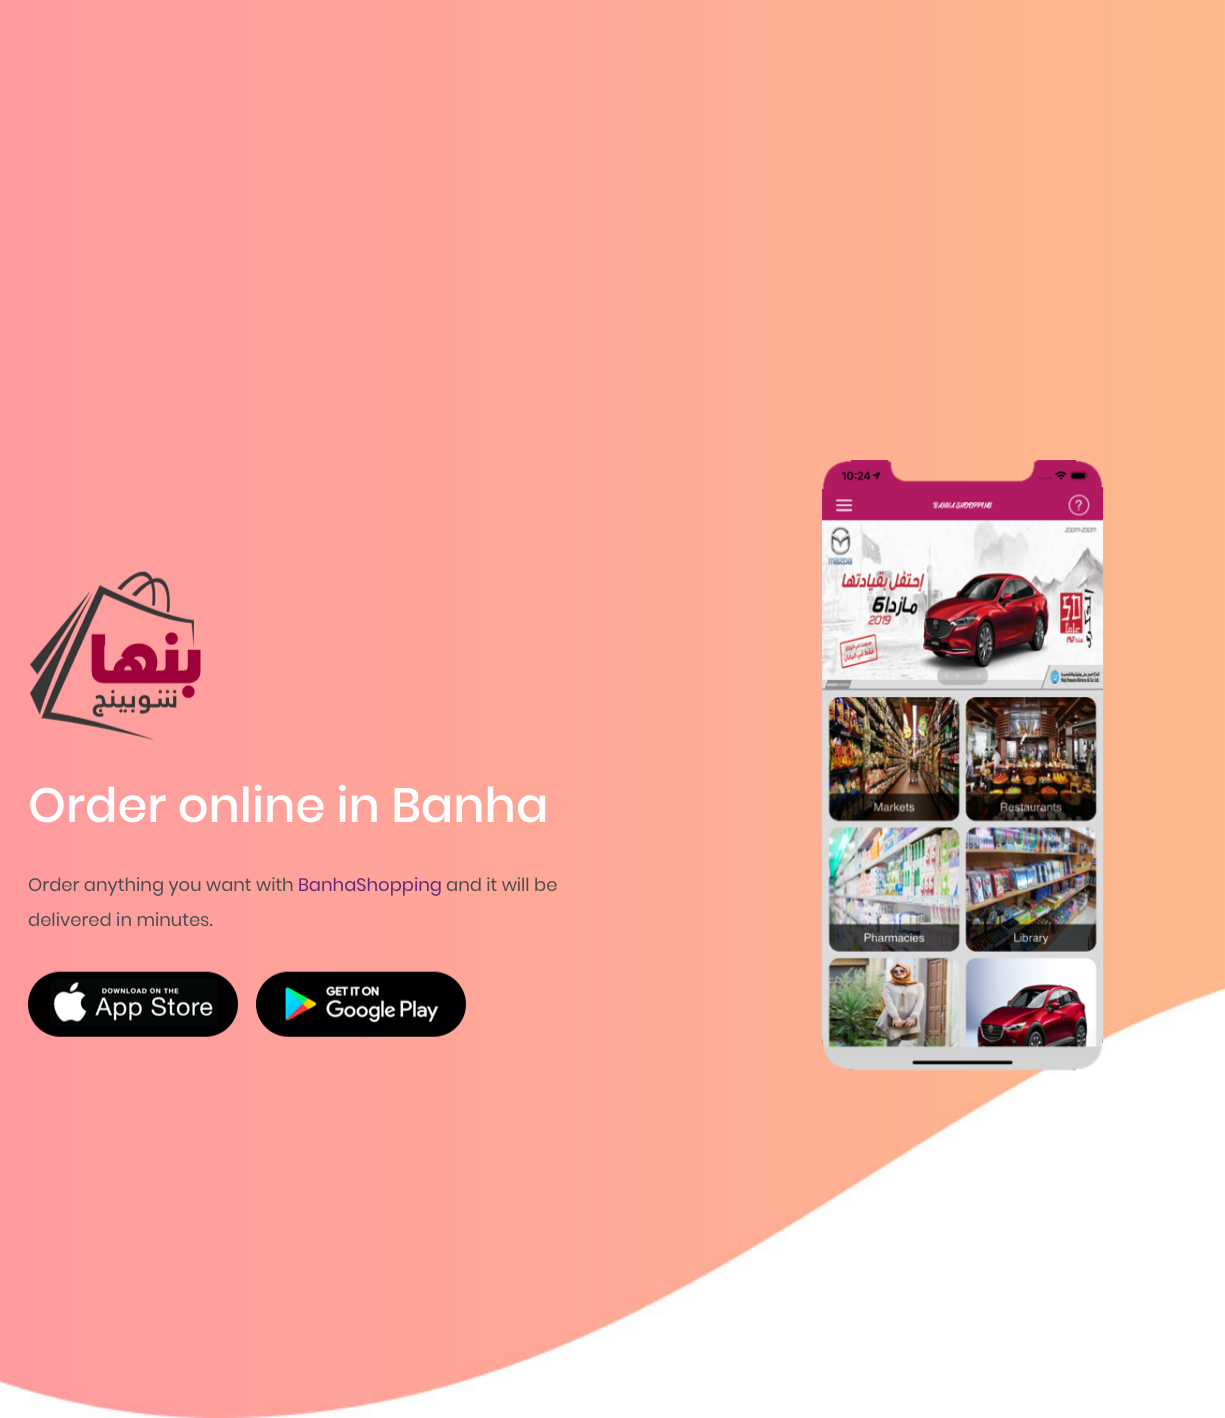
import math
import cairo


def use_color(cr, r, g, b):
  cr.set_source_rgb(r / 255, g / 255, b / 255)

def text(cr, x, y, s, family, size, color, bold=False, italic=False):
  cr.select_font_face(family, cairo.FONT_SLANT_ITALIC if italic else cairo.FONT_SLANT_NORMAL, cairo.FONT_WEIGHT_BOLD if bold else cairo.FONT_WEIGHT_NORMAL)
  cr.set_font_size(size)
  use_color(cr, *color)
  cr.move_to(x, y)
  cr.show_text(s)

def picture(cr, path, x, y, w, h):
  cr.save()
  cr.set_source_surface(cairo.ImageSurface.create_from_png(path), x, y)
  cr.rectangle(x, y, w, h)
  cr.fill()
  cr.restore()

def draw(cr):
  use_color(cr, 255, 255, 255)
  cr.paint()
  picture(cr, "img_01.png", 0, 0, 1225, 1418)
  picture(cr, "img_02.png", 29, 571, 172, 169)
  picture(cr, "img_03.png", 28, 971, 210, 66)
  picture(cr, "img_04.png", 256, 971, 210, 66)
  picture(cr, "img_05.png", 822, 460, 282, 611)
  text(cr, 28, 822, "Order online in Banha", "Poppins Medium", 48, (255, 255, 255))
  text(cr, 28, 891, "Order anything you want with", "Poppins", 18, (78, 78, 78))
  text(cr, 298, 891, "BanhaShopping", "Poppins", 18, (99, 42, 123))
  text(cr, 446, 891, "and it will be", "Poppins", 18, (78, 78, 78))
  text(cr, 28, 926, "delivered in minutes.", "Poppins", 18, (78, 78, 78))


surface = cairo.ImageSurface(cairo.FORMAT_RGB24, 1225, 1418)
cr = cairo.Context(surface)
options = cairo.FontOptions()
options.set_hint_metrics(cairo.HINT_METRICS_OFF)
options.set_hint_style(cairo.HINT_STYLE_NONE)
cr.set_font_options(options)
cr.set_miter_limit(4)
draw(cr)
surface.write_to_png("out.png")
